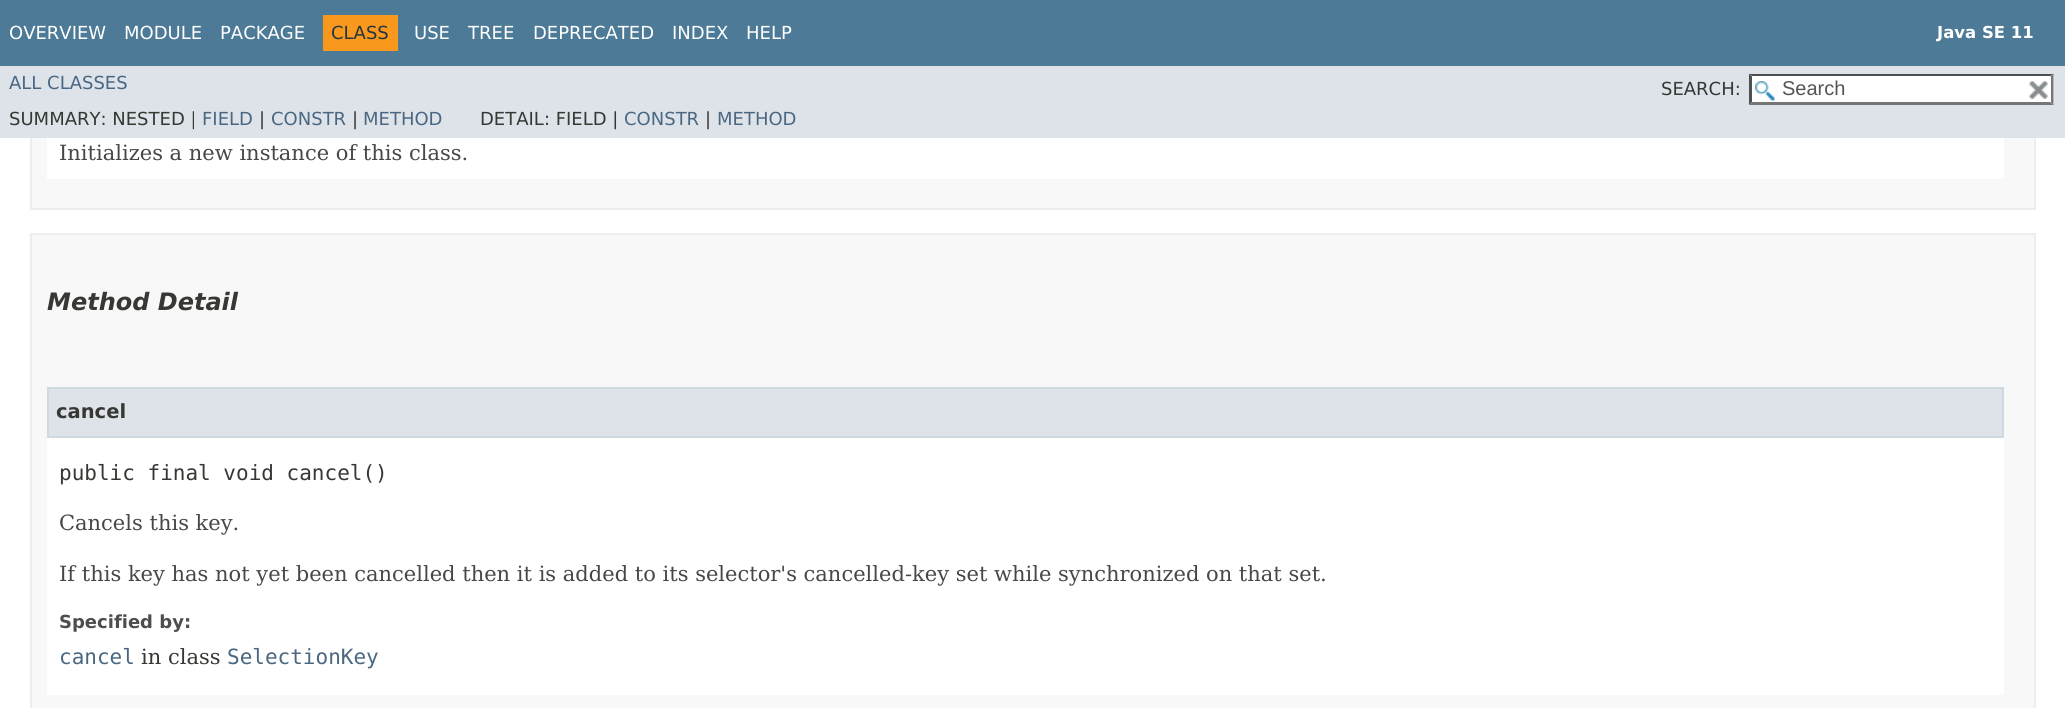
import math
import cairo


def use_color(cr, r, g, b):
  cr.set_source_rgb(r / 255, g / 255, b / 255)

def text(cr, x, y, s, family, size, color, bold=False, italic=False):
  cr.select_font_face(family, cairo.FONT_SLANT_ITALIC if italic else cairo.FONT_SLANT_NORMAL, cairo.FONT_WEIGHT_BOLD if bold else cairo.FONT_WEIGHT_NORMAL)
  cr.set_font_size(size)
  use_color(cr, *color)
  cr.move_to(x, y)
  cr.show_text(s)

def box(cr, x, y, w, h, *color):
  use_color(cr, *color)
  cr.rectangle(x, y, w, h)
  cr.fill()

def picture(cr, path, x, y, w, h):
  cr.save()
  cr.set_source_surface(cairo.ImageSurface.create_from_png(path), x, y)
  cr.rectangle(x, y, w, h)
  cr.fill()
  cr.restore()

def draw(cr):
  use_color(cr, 255, 255, 255)
  cr.paint()
  box(cr, 32, 138, 2002, 70, 248, 248, 248)
  cr.rectangle(31, -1, 2004, 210)
  use_color(cr, 237, 237, 237)
  cr.stroke()
  box(cr, 0, 0, 2065, 66, 77, 122, 151)
  box(cr, 323, 15, 75, 36, 248, 152, 29)
  box(cr, 0, 66, 2065, 72, 222, 227, 233)
  box(cr, 1749, 74, 305, 31, 255, 255, 255)
  picture(cr, "img_01.png", 1755, 81, 20, 20)
  use_color(cr, 79, 79, 79)
  cr.new_path()
  cr.move_to(1749, 74)
  cr.line_to(2054, 74)
  cr.line_to(2050, 76)
  cr.line_to(1752, 76)
  cr.close_path()
  cr.fill()
  use_color(cr, 118, 118, 118)
  cr.new_path()
  cr.move_to(2053.5, 73.5)
  cr.line_to(2053.5, 105)
  cr.line_to(2050.5, 102)
  cr.line_to(2050.5, 76.5)
  cr.close_path()
  cr.fill()
  cr.new_path()
  cr.move_to(2054, 105)
  cr.line_to(1749, 105)
  cr.line_to(1752, 102)
  cr.line_to(2050, 102)
  cr.close_path()
  cr.fill()
  use_color(cr, 79, 79, 79)
  cr.new_path()
  cr.move_to(1749, 105)
  cr.line_to(1749, 73.5)
  cr.line_to(1752, 76.5)
  cr.line_to(1752, 102)
  cr.close_path()
  cr.fill()
  box(cr, 2050, 77, 1, 25, 255, 255, 255)
  picture(cr, "img_02.png", 2028, 81, 20, 19)
  box(cr, 47, 138, 1957, 41, 255, 255, 255)
  use_color(cr, 248, 248, 248)
  cr.rectangle(31, 234, 2004, 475)
  cr.fill_preserve()
  use_color(cr, 237, 237, 237)
  cr.stroke()
  box(cr, 47, 438, 1957, 257, 255, 255, 255)
  use_color(cr, 222, 227, 233)
  cr.rectangle(48, 388, 1955, 49)
  cr.fill_preserve()
  use_color(cr, 208, 217, 224)
  cr.stroke()
  text(cr, 9, 39, "OVERVIEW", "DejaVu Sans", 18, (255, 255, 255))
  text(cr, 124, 39, "MODULE", "DejaVu Sans", 18, (255, 255, 255))
  text(cr, 220, 39, "PACKAGE", "DejaVu Sans", 18, (255, 255, 255))
  text(cr, 331, 39, "CLASS", "DejaVu Sans", 18, (37, 52, 65))
  text(cr, 414, 39, "USE", "DejaVu Sans", 18, (255, 255, 255))
  text(cr, 468, 39, "TREE", "DejaVu Sans", 18, (255, 255, 255))
  text(cr, 533, 39, "DEPRECATED", "DejaVu Sans", 18, (255, 255, 255))
  text(cr, 672, 39, "INDEX", "DejaVu Sans", 18, (255, 255, 255))
  text(cr, 746, 39, "HELP", "DejaVu Sans", 18, (255, 255, 255))
  text(cr, 1937, 38, "Java SE 11", "DejaVu Sans", 16.5, (255, 255, 255), bold=True)
  text(cr, 9, 89, "ALL CLASSES", "DejaVu Sans", 18, (74, 103, 130))
  text(cr, 1661, 95, "SEARCH:", "DejaVu Sans", 18, (53, 56, 51))
  text(cr, 1782, 95, "Search", "Liberation Sans", 20, (84, 84, 84))
  text(cr, 9, 125, "SUMMARY: NESTED |", "DejaVu Sans", 18, (53, 56, 51))
  text(cr, 202, 125, "FIELD", "DejaVu Sans", 18, (74, 103, 130))
  text(cr, 259, 125, "|", "DejaVu Sans", 18, (53, 56, 51))
  text(cr, 271, 125, "CONSTR", "DejaVu Sans", 18, (74, 103, 130))
  text(cr, 352, 125, "|", "DejaVu Sans", 18, (53, 56, 51))
  text(cr, 363, 125, "METHOD", "DejaVu Sans", 18, (74, 103, 130))
  text(cr, 480, 125, "DETAIL: FIELD |", "DejaVu Sans", 18, (53, 56, 51))
  text(cr, 624, 125, "CONSTR", "DejaVu Sans", 18, (74, 103, 130))
  text(cr, 705, 125, "|", "DejaVu Sans", 18, (53, 56, 51))
  text(cr, 717, 125, "METHOD", "DejaVu Sans", 18, (74, 103, 130))
  text(cr, 59, 160, "Initializes a new instance of this class.", "DejaVu Serif", 21, (71, 71, 71))
  text(cr, 47, 310, "Method Detail", "DejaVu Sans", 24, (53, 56, 51), bold=True, italic=True)
  text(cr, 56, 418, "cancel", "DejaVu Sans", 19.5, (53, 56, 51), bold=True)
  text(cr, 59, 480, "public final void cancel()", "DejaVu Sans Mono", 21, (53, 56, 51))
  text(cr, 59, 530, "Cancels this key.", "DejaVu Serif", 21, (71, 71, 71))
  text(cr, 59, 581, "If this key has not yet been cancelled then it is added to its selector's cancelled-key set while synchronized on that set.", "DejaVu Serif", 21, (71, 71, 71))
  text(cr, 59, 628, "Specified by:", "DejaVu Sans", 18, (78, 78, 78), bold=True)
  text(cr, 59, 664, "cancel", "DejaVu Sans Mono", 21, (74, 103, 130))
  text(cr, 141, 664, "in class", "DejaVu Serif", 21, (53, 56, 51))
  text(cr, 227, 664, "SelectionKey", "DejaVu Sans Mono", 21, (74, 103, 130))


surface = cairo.ImageSurface(cairo.FORMAT_RGB24, 2065, 708)
cr = cairo.Context(surface)
options = cairo.FontOptions()
options.set_hint_metrics(cairo.HINT_METRICS_OFF)
options.set_hint_style(cairo.HINT_STYLE_NONE)
cr.set_font_options(options)
cr.set_miter_limit(4)
draw(cr)
surface.write_to_png("out.png")
